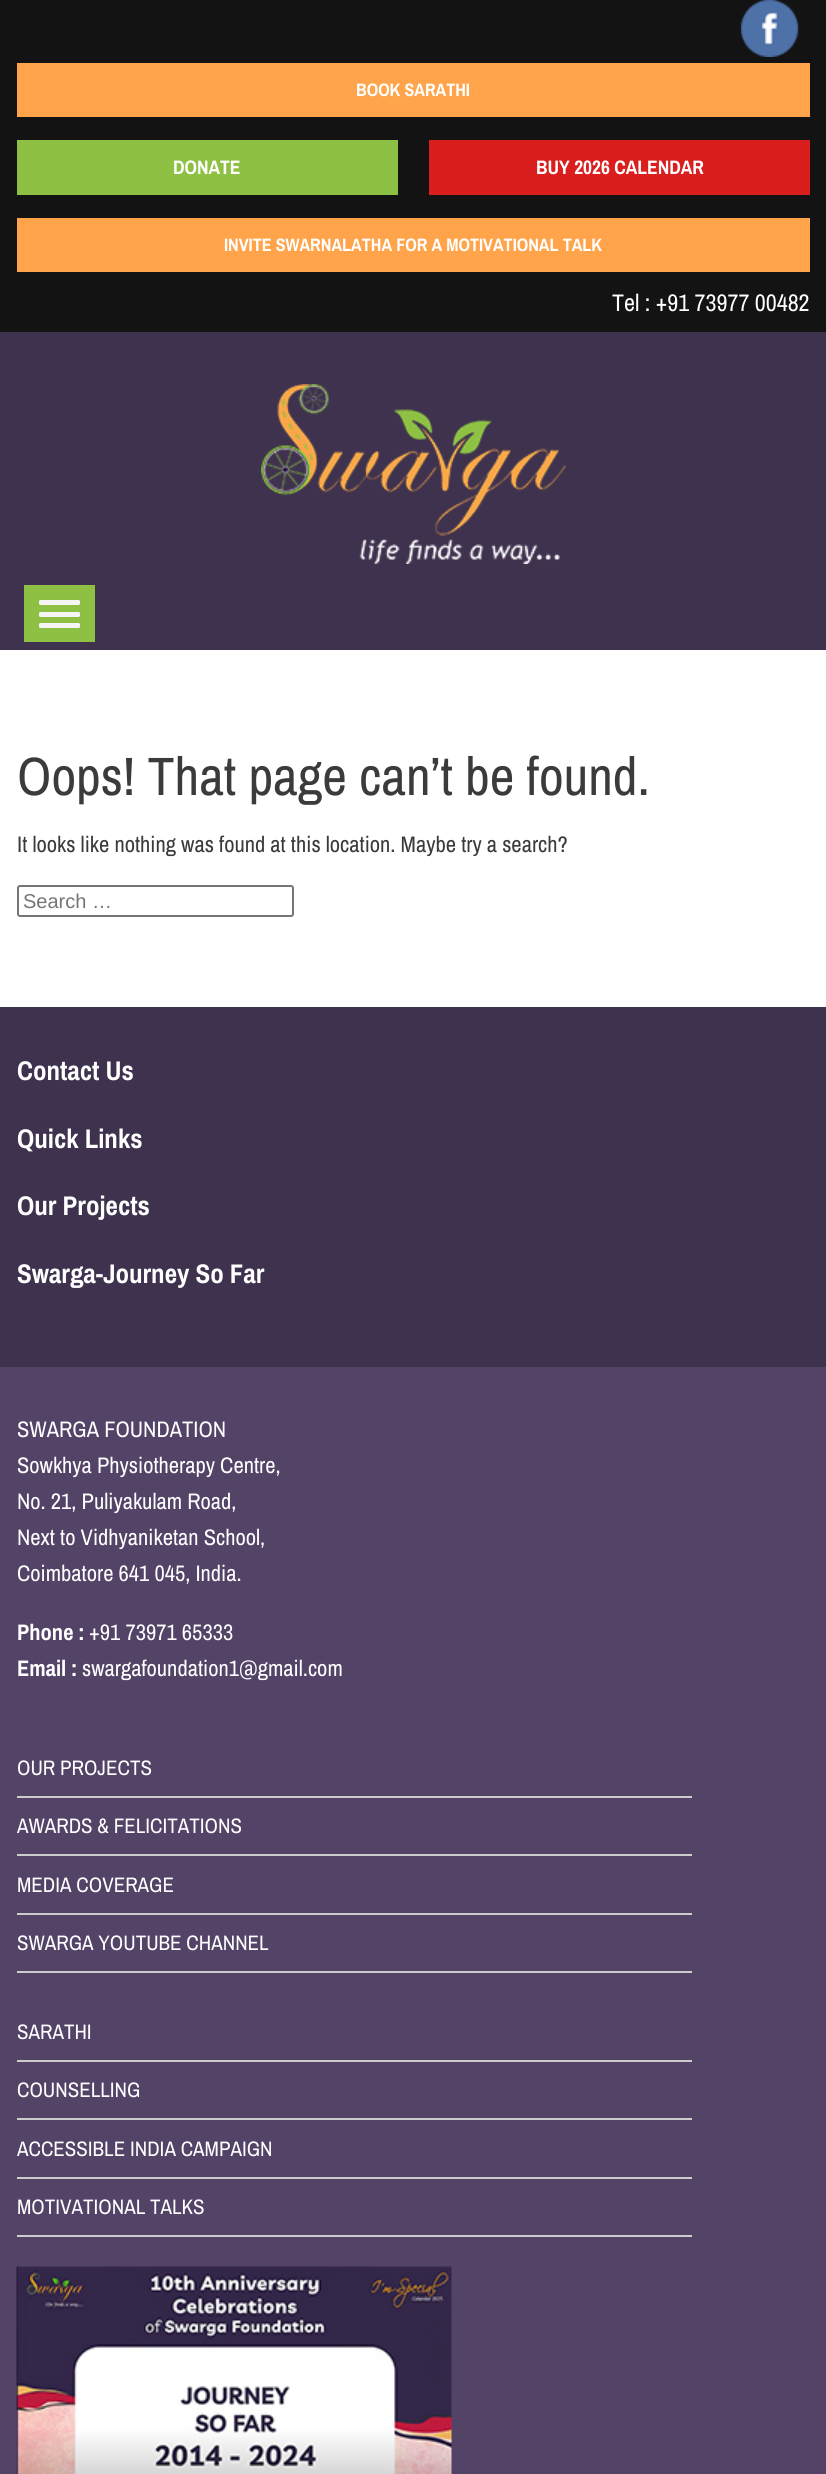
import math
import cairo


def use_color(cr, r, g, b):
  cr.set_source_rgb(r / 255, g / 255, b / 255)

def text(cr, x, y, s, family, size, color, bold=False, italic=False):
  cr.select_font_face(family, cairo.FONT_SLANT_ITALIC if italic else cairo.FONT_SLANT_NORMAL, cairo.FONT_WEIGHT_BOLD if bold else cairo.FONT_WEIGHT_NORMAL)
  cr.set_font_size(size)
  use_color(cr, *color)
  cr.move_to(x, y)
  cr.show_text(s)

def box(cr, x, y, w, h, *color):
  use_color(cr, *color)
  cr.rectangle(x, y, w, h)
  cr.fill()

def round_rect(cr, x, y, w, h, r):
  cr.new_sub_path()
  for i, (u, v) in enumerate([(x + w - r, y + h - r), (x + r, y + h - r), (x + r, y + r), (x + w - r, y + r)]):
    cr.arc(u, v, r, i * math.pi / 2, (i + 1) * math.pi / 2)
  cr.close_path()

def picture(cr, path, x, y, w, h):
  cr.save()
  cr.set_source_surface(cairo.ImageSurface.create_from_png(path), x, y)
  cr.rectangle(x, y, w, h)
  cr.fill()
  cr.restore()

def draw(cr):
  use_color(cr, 255, 255, 255)
  cr.paint()
  box(cr, 0, 0, 826, 332, 19, 19, 19)
  picture(cr, "img_01.png", 740, 0, 59, 57)
  box(cr, 17, 63, 793, 54, 255, 164, 74)
  box(cr, 17, 140, 381, 55, 142, 193, 67)
  box(cr, 429, 140, 381, 55, 218, 29, 29)
  box(cr, 17, 218, 793, 54, 255, 164, 74)
  box(cr, 0, 332, 826, 318, 62, 50, 79)
  picture(cr, "img_02.png", 261, 384, 305, 180)
  box(cr, 24, 585, 71, 57, 142, 193, 67)
  use_color(cr, 245, 245, 245)
  round_rect(cr, 39, 600, 41, 5, 1.5)
  cr.fill()
  round_rect(cr, 39, 612, 41, 5, 1.5)
  cr.fill()
  round_rect(cr, 39, 623, 41, 5, 1.5)
  cr.fill()
  round_rect(cr, 18, 886, 275, 30, 2)
  use_color(cr, 118, 118, 118)
  cr.stroke()
  box(cr, 0, 1007, 826, 360, 62, 50, 79)
  box(cr, 0, 1367, 826, 1107, 82, 67, 103)
  box(cr, 17, 1796, 675, 2, 204, 204, 204)
  box(cr, 17, 1854, 675, 2, 204, 204, 204)
  box(cr, 17, 1913, 675, 2, 204, 204, 204)
  box(cr, 17, 1971, 675, 2, 204, 204, 204)
  box(cr, 17, 2060, 675, 2, 204, 204, 204)
  box(cr, 17, 2118, 675, 2, 204, 204, 204)
  box(cr, 17, 2177, 675, 2, 204, 204, 204)
  box(cr, 17, 2235, 675, 2, 204, 204, 204)
  picture(cr, "img_03.png", 16, 2266, 436, 208)
  text(cr, 356, 96, "BOOK SARATHI", "Archivo Narrow", 18, (255, 255, 255), bold=True)
  text(cr, 173, 174, "DONATE", "Archivo Narrow", 19.5, (255, 255, 255), bold=True)
  text(cr, 536, 174, "BUY 2026 CALENDAR", "Archivo Narrow", 19.5, (255, 255, 255), bold=True)
  text(cr, 224, 251, "INVITE SWARNALATHA FOR A MOTIVATIONAL TALK", "Archivo Narrow", 18, (255, 255, 255), bold=True)
  text(cr, 612, 311, "Tel : +91 73977 00482", "Archivo Narrow", 24, (255, 255, 255))
  text(cr, 17, 795, "Oops! That page can’t be found.", "Archivo Narrow", 54, (59, 59, 61))
  text(cr, 17, 852, "It looks like nothing was found at this location. Maybe try a search?", "Archivo Narrow", 22.5, (59, 59, 61))
  text(cr, 23, 908, "Search …", "Liberation Sans", 20, (117, 117, 117))
  text(cr, 17, 1080, "Contact Us", "Archivo Narrow", 27, (255, 255, 255), bold=True)
  text(cr, 17, 1148, "Quick Links", "Archivo Narrow", 27, (255, 255, 255), bold=True)
  text(cr, 17, 1215, "Our Projects", "Archivo Narrow", 27, (255, 255, 255), bold=True)
  text(cr, 17, 1283, "Swarga-Journey So Far", "Archivo Narrow", 27, (255, 255, 255), bold=True)
  text(cr, 17, 1437, "SWARGA FOUNDATION", "Archivo Narrow", 22.5, (255, 255, 255))
  text(cr, 17, 1473, "Sowkhya Physiotherapy Centre,", "Archivo Narrow", 22.5, (255, 255, 255))
  text(cr, 17, 1509, "No. 21, Puliyakulam Road,", "Archivo Narrow", 22.5, (255, 255, 255))
  text(cr, 17, 1545, "Next to Vidhyaniketan School,", "Archivo Narrow", 22.5, (255, 255, 255))
  text(cr, 17, 1581, "Coimbatore 641 045, India.", "Archivo Narrow", 22.5, (255, 255, 255))
  text(cr, 17, 1640, "Phone :", "Archivo Narrow", 22.5, (255, 255, 255), bold=True)
  text(cr, 89, 1640, "+91 73971 65333", "Archivo Narrow", 22.5, (255, 255, 255))
  text(cr, 17, 1676, "Email :", "Archivo Narrow", 22.5, (255, 255, 255), bold=True)
  text(cr, 82, 1676, "swargafoundation1@gmail.com", "Archivo Narrow", 22.5, (255, 255, 255))
  text(cr, 17, 1775, "OUR PROJECTS", "Archivo Narrow", 21, (255, 255, 255))
  text(cr, 17, 1833, "AWARDS & FELICITATIONS", "Archivo Narrow", 21, (255, 255, 255))
  text(cr, 17, 1892, "MEDIA COVERAGE", "Archivo Narrow", 21, (255, 255, 255))
  text(cr, 17, 1950, "SWARGA YOUTUBE CHANNEL", "Archivo Narrow", 21, (255, 255, 255))
  text(cr, 17, 2039, "SARATHI", "Archivo Narrow", 21, (255, 255, 255))
  text(cr, 17, 2097, "COUNSELLING", "Archivo Narrow", 21, (255, 255, 255))
  text(cr, 17, 2156, "ACCESSIBLE INDIA CAMPAIGN", "Archivo Narrow", 21, (255, 255, 255))
  text(cr, 17, 2214, "MOTIVATIONAL TALKS", "Archivo Narrow", 21, (255, 255, 255))


surface = cairo.ImageSurface(cairo.FORMAT_RGB24, 826, 2474)
cr = cairo.Context(surface)
options = cairo.FontOptions()
options.set_hint_metrics(cairo.HINT_METRICS_OFF)
options.set_hint_style(cairo.HINT_STYLE_NONE)
cr.set_font_options(options)
cr.set_miter_limit(4)
draw(cr)
surface.write_to_png("out.png")
